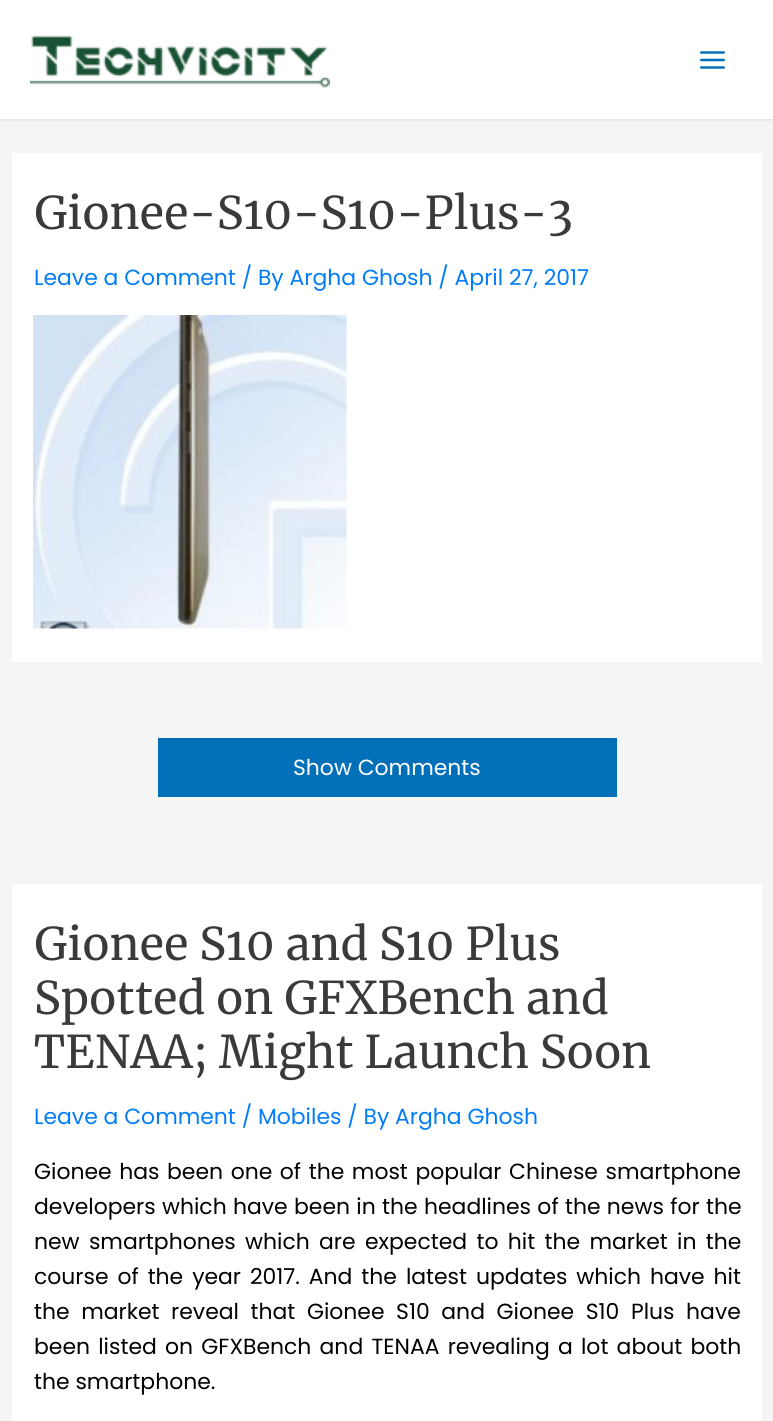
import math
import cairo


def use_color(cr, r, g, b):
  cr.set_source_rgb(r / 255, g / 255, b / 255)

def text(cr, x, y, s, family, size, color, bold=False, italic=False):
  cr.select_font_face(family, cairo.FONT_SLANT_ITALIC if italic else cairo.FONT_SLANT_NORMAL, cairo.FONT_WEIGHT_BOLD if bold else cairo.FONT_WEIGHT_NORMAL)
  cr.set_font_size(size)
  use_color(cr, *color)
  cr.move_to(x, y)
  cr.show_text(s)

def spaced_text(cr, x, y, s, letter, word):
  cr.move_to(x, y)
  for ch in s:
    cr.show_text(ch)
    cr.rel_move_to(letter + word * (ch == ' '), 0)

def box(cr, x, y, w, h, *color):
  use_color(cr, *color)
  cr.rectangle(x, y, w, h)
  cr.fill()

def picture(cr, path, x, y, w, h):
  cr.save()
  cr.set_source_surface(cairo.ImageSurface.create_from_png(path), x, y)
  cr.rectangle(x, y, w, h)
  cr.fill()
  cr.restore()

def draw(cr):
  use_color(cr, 245, 245, 245)
  cr.paint()
  box(cr, 0, 0, 773, 119, 255, 255, 255)
  box(cr, 0, 119, 773, 2, 234, 234, 234)
  picture(cr, "img_01.png", 30, 35, 300, 53)
  picture(cr, "img_02.png", 700, 51, 25, 18)
  box(cr, 12, 153, 750, 509, 255, 255, 255)
  picture(cr, "img_03.png", 33, 315, 314, 314)
  box(cr, 158, 738, 459, 59, 1, 112, 185)
  box(cr, 12, 884, 750, 537, 255, 255, 255)
  text(cr, 34, 229, "Gionee-S10-S10-Plus-3", "Merriweather", 45, (58, 58, 58))
  text(cr, 34, 285, "Leave a Comment / By Argha Ghosh / April 27, 2017", "Poppins", 21.9, (2, 125, 247))
  text(cr, 293, 775, "Show Comments", "Poppins", 21.9, (255, 255, 255))
  text(cr, 34, 960, "Gionee S10 and S10 Plus", "Merriweather", 45, (58, 58, 58))
  text(cr, 34, 1014, "Spotted on GFXBench and", "Merriweather", 45, (58, 58, 58))
  text(cr, 34, 1068, "TENAA; Might Launch Soon", "Merriweather", 45, (58, 58, 58))
  text(cr, 34, 1124, "Leave a Comment / Mobiles / By Argha Ghosh", "Poppins", 21.9, (2, 125, 247))
  use_color(cr, 0, 0, 0)
  spaced_text(cr, 34, 1179, "Gionee has been one of the most popular Chinese smartphone", 0, 1.75)
  spaced_text(cr, 34, 1214, "developers which have been in the headlines of the news for the", 0, 0.5)
  spaced_text(cr, 34, 1249, "new smartphones which are expected to hit the market in the", 0, 3.5)
  spaced_text(cr, 34, 1284, "course of the year 2017. And the latest updates which have hit", 0, 3.1)
  spaced_text(cr, 34, 1319, "the market reveal that Gionee S10 and Gionee S10 Plus have", 0, 5.75)
  spaced_text(cr, 34, 1354, "been listed on GFXBench and TENAA revealing a lot about both", 0, 2.4)
  text(cr, 34, 1389, "the smartphone.", "Poppins", 21.9, (0, 0, 0))


surface = cairo.ImageSurface(cairo.FORMAT_RGB24, 773, 1421)
cr = cairo.Context(surface)
options = cairo.FontOptions()
options.set_hint_metrics(cairo.HINT_METRICS_OFF)
options.set_hint_style(cairo.HINT_STYLE_NONE)
cr.set_font_options(options)
cr.set_miter_limit(4)
draw(cr)
surface.write_to_png("out.png")
